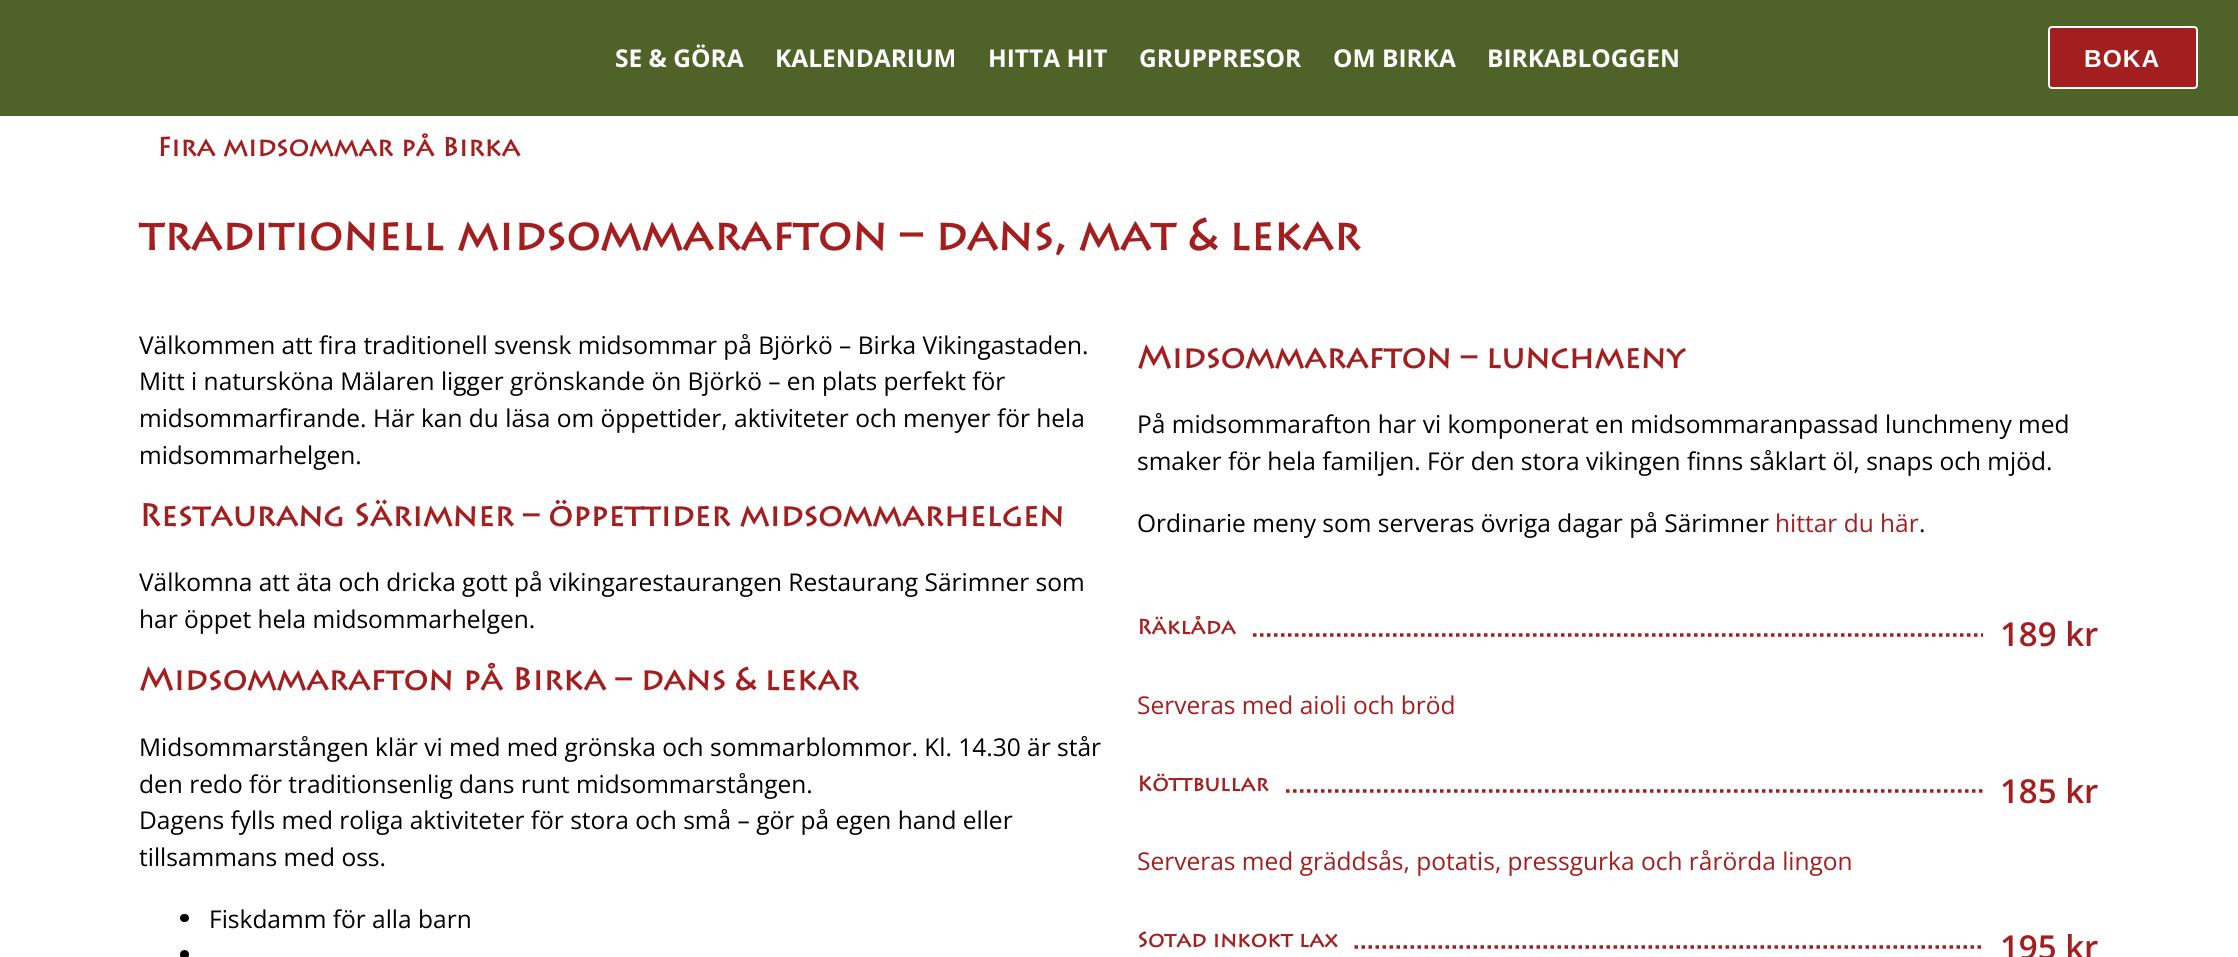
import math
import cairo


def use_color(cr, r, g, b):
  cr.set_source_rgb(r / 255, g / 255, b / 255)

def text(cr, x, y, s, family, size, color, bold=False, italic=False):
  cr.select_font_face(family, cairo.FONT_SLANT_ITALIC if italic else cairo.FONT_SLANT_NORMAL, cairo.FONT_WEIGHT_BOLD if bold else cairo.FONT_WEIGHT_NORMAL)
  cr.set_font_size(size)
  use_color(cr, *color)
  cr.move_to(x, y)
  cr.show_text(s)

def spaced_text(cr, x, y, s, letter, word):
  cr.move_to(x, y)
  for ch in s:
    cr.show_text(ch)
    cr.rel_move_to(letter + word * (ch == ' '), 0)

def box(cr, x, y, w, h, *color):
  use_color(cr, *color)
  cr.rectangle(x, y, w, h)
  cr.fill()

def round_rect(cr, x, y, w, h, r):
  cr.new_sub_path()
  for i, (u, v) in enumerate([(x + w - r, y + h - r), (x + r, y + h - r), (x + r, y + r), (x + w - r, y + r)]):
    cr.arc(u, v, r, i * math.pi / 2, (i + 1) * math.pi / 2)
  cr.close_path()

def draw(cr):
  use_color(cr, 255, 255, 255)
  cr.paint()
  box(cr, 0, 0, 2238, 116, 79, 99, 40)
  use_color(cr, 163, 30, 31)
  round_rect(cr, 2049, 27, 148, 61, 3)
  cr.fill_preserve()
  use_color(cr, 255, 255, 255)
  cr.stroke()
  use_color(cr, 0, 0, 0)
  round_rect(cr, 180, 914, 9, 8, 4)
  cr.fill()
  cr.arc(184.5, 954.5, 4.5, 0, 2 * math.pi)
  cr.fill()
  cr.new_path()
  cr.move_to(1253, 635)
  cr.line_to(1983, 635)
  use_color(cr, 163, 30, 31)
  cr.set_line_width(3.5)
  cr.set_dash([3.5, 3.5])
  cr.stroke()
  cr.new_path()
  cr.move_to(1286, 791)
  cr.line_to(1983, 791)
  cr.stroke()
  cr.new_path()
  cr.move_to(1354.5, 947)
  cr.line_to(1983, 947)
  cr.stroke()
  text(cr, 615, 67, "SE & GÖRA", "Open Sans", 24.5, (255, 255, 255), bold=True)
  text(cr, 775, 67, "KALENDARIUM", "Open Sans", 24.5, (255, 255, 255), bold=True)
  text(cr, 988, 67, "HITTA HIT", "Open Sans", 24.5, (255, 255, 255), bold=True)
  text(cr, 1139, 67, "GRUPPRESOR", "Open Sans", 24.5, (255, 255, 255), bold=True)
  text(cr, 1333, 67, "OM BIRKA", "Open Sans", 24.5, (255, 255, 255), bold=True)
  text(cr, 1487, 67, "BIRKABLOGGEN", "Open Sans", 24.5, (255, 255, 255), bold=True)
  cr.select_font_face("Liberation Sans", cairo.FONT_SLANT_NORMAL, cairo.FONT_WEIGHT_BOLD)
  spaced_text(cr, 2084, 67, "BOKA", 1, 0)
  text(cr, 157, 156, "Fira midsommar på Birka", "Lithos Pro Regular", 26.25, (163, 30, 31), bold=True)
  text(cr, 139, 250, "traditionell midsommarafton – dans, mat & lekar", "Lithos Pro Regular", 43.75, (163, 30, 31), bold=True)
  text(cr, 139, 354, "Välkommen att fira traditionell svensk midsommar på Björkö – Birka Vikingastaden.", "Open Sans", 24.5, (0, 0, 0))
  text(cr, 139, 390, "Mitt i natursköna Mälaren ligger grönskande ön Björkö – en plats perfekt för", "Open Sans", 24.5, (0, 0, 0))
  text(cr, 139, 427, "midsommarfirande. Här kan du läsa om öppettider, aktiviteter och menyer för hela", "Open Sans", 24.5, (0, 0, 0))
  text(cr, 139, 464, "midsommarhelgen.", "Open Sans", 24.5, (0, 0, 0))
  text(cr, 139, 526, "Restaurang Särimner – öppettider midsommarhelgen", "Lithos Pro Regular", 31.5, (163, 30, 31), bold=True)
  text(cr, 139, 591, "Välkomna att äta och dricka gott på vikingarestaurangen Restaurang Särimner som", "Open Sans", 24.5, (0, 0, 0))
  text(cr, 139, 628, "har öppet hela midsommarhelgen.", "Open Sans", 24.5, (0, 0, 0))
  text(cr, 139, 690, "Midsommarafton på Birka – dans & lekar", "Lithos Pro Regular", 31.5, (163, 30, 31), bold=True)
  text(cr, 139, 756, "Midsommarstången klär vi med med grönska och sommarblommor. Kl. 14.30 är står", "Open Sans", 24.5, (0, 0, 0))
  text(cr, 139, 793, "den redo för traditionsenlig dans runt midsommarstången.", "Open Sans", 24.5, (0, 0, 0))
  text(cr, 139, 829, "Dagens fylls med roliga aktiviteter för stora och små – gör på egen hand eller", "Open Sans", 24.5, (0, 0, 0))
  text(cr, 139, 866, "tillsammans med oss.", "Open Sans", 24.5, (0, 0, 0))
  text(cr, 209, 928, "Fiskdamm för alla barn", "Open Sans", 24.5, (0, 0, 0))
  text(cr, 1137, 368, "Midsommarafton – lunchmeny", "Lithos Pro Regular", 31.5, (163, 30, 31), bold=True)
  text(cr, 1137, 433, "På midsommarafton har vi komponerat en midsommaranpassad lunchmeny med", "Open Sans", 24.5, (0, 0, 0))
  text(cr, 1137, 470, "smaker för hela familjen. För den stora vikingen finns såklart öl, snaps och mjöd.", "Open Sans", 24.5, (0, 0, 0))
  text(cr, 1137, 532, "Ordinarie meny som serveras övriga dagar på Särimner", "Open Sans", 24.5, (0, 0, 0))
  text(cr, 1775, 532, "hittar du här", "Open Sans", 24.5, (163, 30, 31))
  text(cr, 1919, 532, ".", "Open Sans", 24.5, (0, 0, 0))
  text(cr, 1137, 634, "Räklåda", "Lithos Pro Regular", 21, (163, 30, 31), bold=True)
  text(cr, 2000, 646, "189 kr", "Open Sans SemiBold", 33, (163, 30, 31))
  text(cr, 1137, 714, "Serveras med aioli och bröd", "Open Sans", 24.5, (163, 30, 31))
  text(cr, 1137, 791, "Köttbullar", "Lithos Pro Regular", 21, (163, 30, 31), bold=True)
  text(cr, 2000, 803, "185 kr", "Open Sans SemiBold", 33, (163, 30, 31))
  text(cr, 1137, 870, "Serveras med gräddsås, potatis, pressgurka och rårörda lingon", "Open Sans", 24.5, (163, 30, 31))
  text(cr, 1137, 947, "Sotad inkokt lax", "Lithos Pro Regular", 21, (163, 30, 31), bold=True)
  text(cr, 2000, 959, "195 kr", "Open Sans SemiBold", 33, (163, 30, 31))


surface = cairo.ImageSurface(cairo.FORMAT_RGB24, 2238, 957)
cr = cairo.Context(surface)
options = cairo.FontOptions()
options.set_hint_metrics(cairo.HINT_METRICS_OFF)
options.set_hint_style(cairo.HINT_STYLE_NONE)
cr.set_font_options(options)
cr.set_miter_limit(4)
draw(cr)
surface.write_to_png("out.png")
